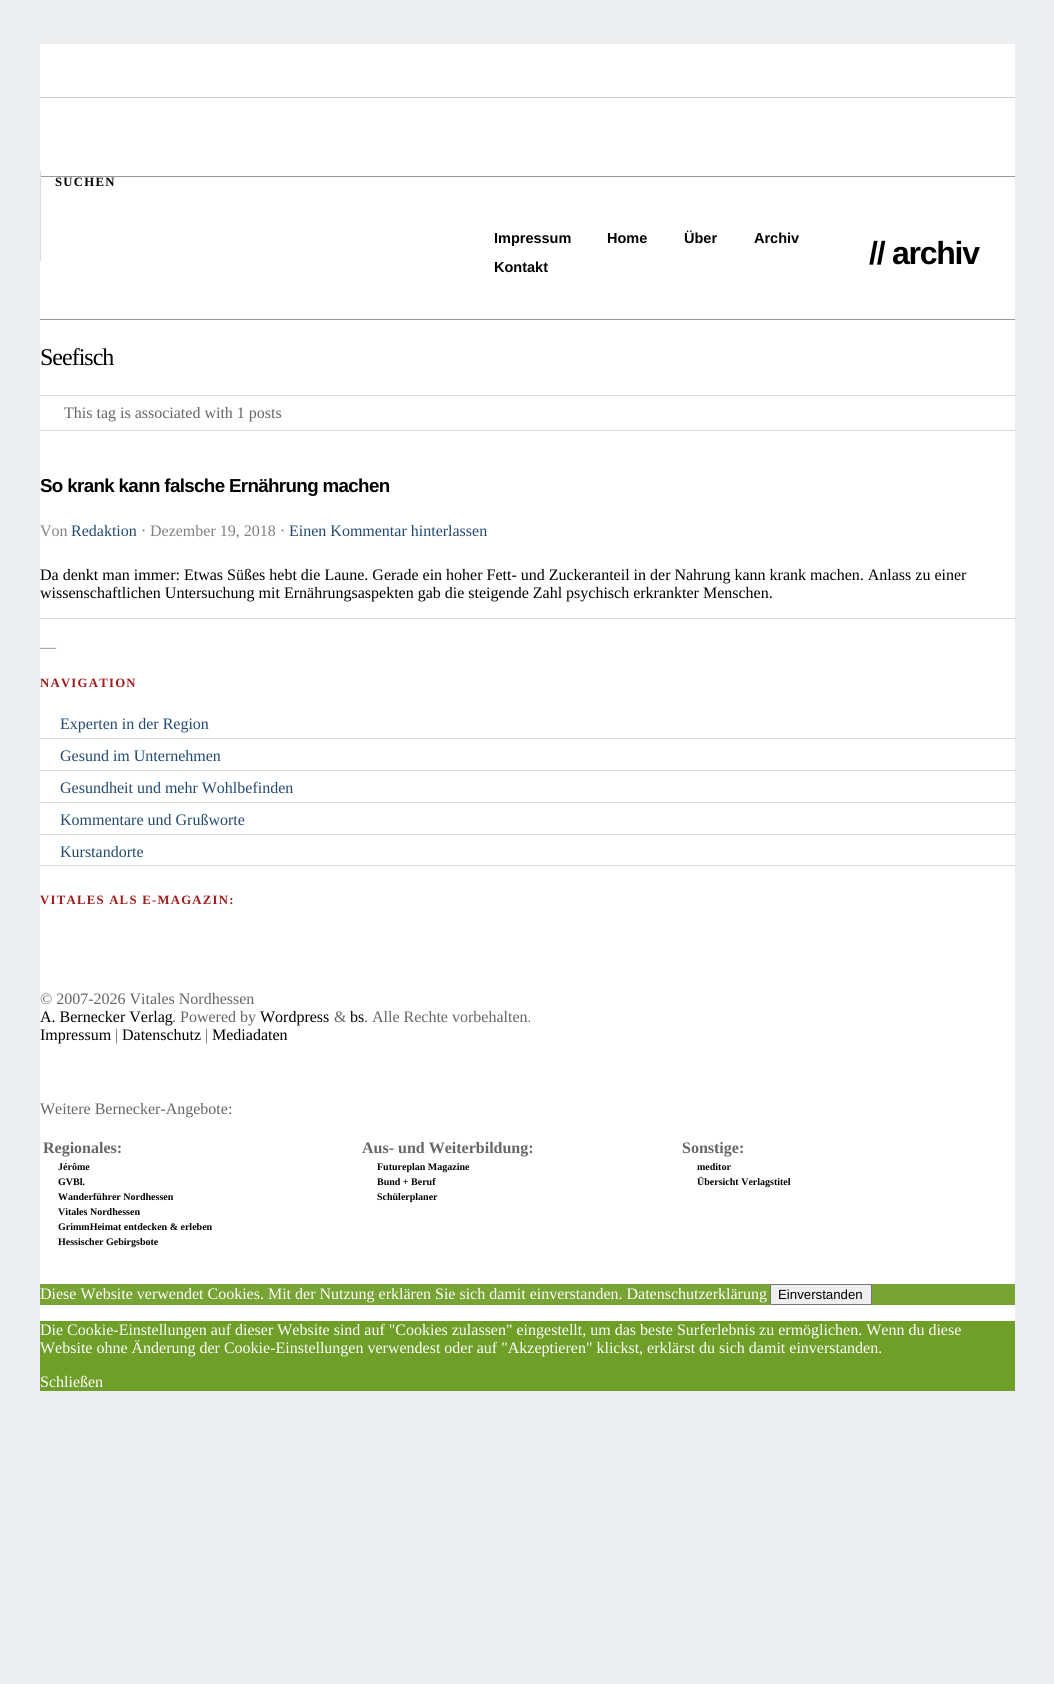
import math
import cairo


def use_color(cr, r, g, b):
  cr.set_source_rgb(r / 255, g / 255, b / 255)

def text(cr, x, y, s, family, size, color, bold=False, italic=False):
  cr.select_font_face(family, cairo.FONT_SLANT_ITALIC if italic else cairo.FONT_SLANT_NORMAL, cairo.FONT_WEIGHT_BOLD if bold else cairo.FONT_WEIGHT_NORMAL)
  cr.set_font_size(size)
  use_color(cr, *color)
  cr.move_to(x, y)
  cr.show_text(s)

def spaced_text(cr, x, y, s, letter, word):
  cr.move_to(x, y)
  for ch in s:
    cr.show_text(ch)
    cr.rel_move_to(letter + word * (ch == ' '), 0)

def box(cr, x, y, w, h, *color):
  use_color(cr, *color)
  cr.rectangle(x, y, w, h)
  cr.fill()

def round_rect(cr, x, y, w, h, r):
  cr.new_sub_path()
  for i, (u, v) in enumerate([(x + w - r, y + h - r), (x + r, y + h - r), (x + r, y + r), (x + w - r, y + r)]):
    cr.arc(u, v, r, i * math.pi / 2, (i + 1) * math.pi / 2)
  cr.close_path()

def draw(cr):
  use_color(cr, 235, 239, 242)
  cr.paint()
  box(cr, 40, 44, 975, 1277, 255, 255, 255)
  box(cr, 40, 176, 975, 1, 153, 153, 153)
  box(cr, 40, 97, 975, 1, 204, 204, 204)
  box(cr, 40, 171, 1, 90, 221, 221, 221)
  box(cr, 40, 319, 975, 1, 153, 153, 153)
  box(cr, 40, 395, 975, 1, 218, 218, 218)
  box(cr, 40, 430, 975, 1, 218, 218, 218)
  box(cr, 40, 618, 975, 1, 218, 218, 218)
  box(cr, 40, 738, 975, 1, 218, 218, 218)
  box(cr, 40, 770, 975, 1, 218, 218, 218)
  box(cr, 40, 802, 975, 1, 218, 218, 218)
  box(cr, 40, 834, 975, 1, 218, 218, 218)
  box(cr, 40, 865, 975, 1, 218, 218, 218)
  box(cr, 40, 1284, 975, 21, 119, 164, 52)
  use_color(cr, 239, 239, 239)
  round_rect(cr, 770.5, 1284.5, 101, 20, 1.5)
  cr.fill_preserve()
  use_color(cr, 118, 118, 118)
  cr.set_line_width(1)
  cr.stroke()
  box(cr, 40, 1321, 975, 70, 111, 159, 40)
  cr.select_font_face("Liberation Serif", cairo.FONT_SLANT_NORMAL, cairo.FONT_WEIGHT_BOLD)
  cr.set_font_size(12.75)
  use_color(cr, 0, 0, 0)
  spaced_text(cr, 55, 186, "SUCHEN", 1.25, 0)
  text(cr, 494, 243, "Impressum", "Liberation Sans", 14.5, (0, 0, 0), bold=True)
  text(cr, 607, 243, "Home", "Liberation Sans", 14.5, (0, 0, 0), bold=True)
  text(cr, 684, 243, "Über", "Liberation Sans", 14.5, (0, 0, 0), bold=True)
  text(cr, 754, 243, "Archiv", "Liberation Sans", 14.5, (0, 0, 0), bold=True)
  text(cr, 494, 272, "Kontakt", "Liberation Sans", 14.5, (0, 0, 0), bold=True)
  cr.set_font_size(32)
  spaced_text(cr, 869, 264, "// archiv", -1.25, 0)
  cr.select_font_face("Liberation Serif")
  cr.set_font_size(24)
  spaced_text(cr, 40, 365, "Seefisch", -1, 0)
  text(cr, 64, 418, "This tag is associated with 1 posts", "Liberation Serif", 16, (102, 102, 102))
  cr.select_font_face("Liberation Sans", cairo.FONT_SLANT_NORMAL, cairo.FONT_WEIGHT_BOLD)
  cr.set_font_size(18.75)
  use_color(cr, 0, 0, 0)
  spaced_text(cr, 40, 492, "So krank kann falsche Ernährung machen", -0.65, 0)
  text(cr, 40, 536, "Von", "Liberation Serif", 16, (129, 129, 129))
  text(cr, 71, 536, "Redaktion", "Liberation Serif", 16, (34, 73, 112))
  text(cr, 141, 536, "⋅", "DejaVu Sans", 16, (129, 129, 129))
  text(cr, 150, 536, "Dezember 19, 2018", "Liberation Serif", 16, (129, 129, 129))
  text(cr, 280, 536, "⋅", "DejaVu Sans", 16, (129, 129, 129))
  text(cr, 289, 536, "Einen Kommentar hinterlassen", "Liberation Serif", 16, (34, 73, 112))
  text(cr, 40, 580, "Da denkt man immer: Etwas Süßes hebt die Laune. Gerade ein hoher Fett- und Zuckeranteil in der Nahrung kann krank machen. Anlass zu einer", "Liberation Serif", 16, (0, 0, 0))
  text(cr, 40, 598, "wissenschaftlichen Untersuchung mit Ernährungsaspekten gab die steigende Zahl psychisch erkrankter Menschen.", "Liberation Serif", 16, (0, 0, 0))
  text(cr, 40, 652, "—", "Liberation Serif", 16, (129, 129, 129))
  cr.select_font_face("Liberation Serif", cairo.FONT_SLANT_NORMAL, cairo.FONT_WEIGHT_BOLD)
  cr.set_font_size(12.75)
  use_color(cr, 161, 27, 27)
  spaced_text(cr, 40, 687, "NAVIGATION", 1.25, 0)
  text(cr, 60, 729, "Experten in der Region", "Liberation Serif", 16, (34, 73, 112))
  text(cr, 60, 761, "Gesund im Unternehmen", "Liberation Serif", 16, (34, 73, 112))
  text(cr, 60, 793, "Gesundheit und mehr Wohlbefinden", "Liberation Serif", 16, (34, 73, 112))
  text(cr, 60, 825, "Kommentare und Grußworte", "Liberation Serif", 16, (34, 73, 112))
  text(cr, 60, 857, "Kurstandorte", "Liberation Serif", 16, (34, 73, 112))
  cr.select_font_face("Liberation Serif", cairo.FONT_SLANT_NORMAL, cairo.FONT_WEIGHT_BOLD)
  cr.set_font_size(12.75)
  use_color(cr, 161, 27, 27)
  spaced_text(cr, 40, 904, "VITALES ALS E-MAGAZIN:", 1.25, 0)
  text(cr, 40, 1004, "© 2007-2026 Vitales Nordhessen", "Liberation Serif", 16, (102, 102, 102))
  text(cr, 40, 1022, "A. Bernecker Verlag", "Liberation Serif", 16, (0, 0, 0))
  text(cr, 172, 1022, ". Powered by", "Liberation Serif", 16, (102, 102, 102))
  text(cr, 260, 1022, "Wordpress", "Liberation Serif", 16, (0, 0, 0))
  text(cr, 334, 1022, "&", "Liberation Serif", 16, (102, 102, 102))
  text(cr, 350, 1022, "bs", "Liberation Serif", 16, (0, 0, 0))
  text(cr, 364, 1022, ". Alle Rechte vorbehalten.", "Liberation Serif", 16, (102, 102, 102))
  text(cr, 40, 1040, "Impressum", "Liberation Serif", 16, (0, 0, 0))
  text(cr, 115, 1040, "|", "Liberation Serif", 16, (102, 102, 102))
  text(cr, 122, 1040, "Datenschutz", "Liberation Serif", 16, (0, 0, 0))
  text(cr, 205, 1040, "|", "Liberation Serif", 16, (102, 102, 102))
  text(cr, 212, 1040, "Mediadaten", "Liberation Serif", 16, (0, 0, 0))
  text(cr, 40, 1114, "Weitere Bernecker-Angebote:", "Liberation Serif", 16, (102, 102, 102))
  text(cr, 43, 1153, "Regionales:", "Liberation Serif", 16, (102, 102, 102), bold=True)
  text(cr, 362, 1153, "Aus- und Weiterbildung:", "Liberation Serif", 16, (102, 102, 102), bold=True)
  text(cr, 682, 1153, "Sonstige:", "Liberation Serif", 16, (102, 102, 102), bold=True)
  text(cr, 58, 1170, "Jérôme", "Liberation Serif", 10, (0, 0, 0), bold=True)
  text(cr, 377, 1170, "Futureplan Magazine", "Liberation Serif", 10, (0, 0, 0), bold=True)
  text(cr, 697, 1170, "meditor", "Liberation Serif", 10, (0, 0, 0), bold=True)
  text(cr, 58, 1185, "GVBl.", "Liberation Serif", 10, (0, 0, 0), bold=True)
  text(cr, 377, 1185, "Bund + Beruf", "Liberation Serif", 10, (0, 0, 0), bold=True)
  text(cr, 697, 1185, "Übersicht Verlagstitel", "Liberation Serif", 10, (0, 0, 0), bold=True)
  text(cr, 58, 1200, "Wanderführer Nordhessen", "Liberation Serif", 10, (0, 0, 0), bold=True)
  text(cr, 377, 1200, "Schülerplaner", "Liberation Serif", 10, (0, 0, 0), bold=True)
  text(cr, 58, 1215, "Vitales Nordhessen", "Liberation Serif", 10, (0, 0, 0), bold=True)
  text(cr, 58, 1230, "GrimmHeimat entdecken & erleben", "Liberation Serif", 10, (0, 0, 0), bold=True)
  text(cr, 58, 1245, "Hessischer Gebirgsbote", "Liberation Serif", 10, (0, 0, 0), bold=True)
  text(cr, 40, 1299, "Diese Website verwendet Cookies. Mit der Nutzung erklären Sie sich damit einverstanden. Datenschutzerklärung", "Liberation Serif", 16, (255, 255, 255))
  text(cr, 778, 1299, "Einverstanden", "Liberation Sans", 13.25, (0, 0, 0))
  text(cr, 40, 1335, "Die Cookie-Einstellungen auf dieser Website sind auf \"Cookies zulassen\" eingestellt, um das beste Surferlebnis zu ermöglichen. Wenn du diese", "Liberation Serif", 16, (255, 255, 255))
  text(cr, 40, 1353, "Website ohne Änderung der Cookie-Einstellungen verwendest oder auf \"Akzeptieren\" klickst, erklärst du sich damit einverstanden.", "Liberation Serif", 16, (255, 255, 255))
  text(cr, 40, 1387, "Schließen", "Liberation Serif", 16, (255, 255, 255))


surface = cairo.ImageSurface(cairo.FORMAT_RGB24, 1054, 1684)
cr = cairo.Context(surface)
options = cairo.FontOptions()
options.set_hint_metrics(cairo.HINT_METRICS_OFF)
options.set_hint_style(cairo.HINT_STYLE_NONE)
cr.set_font_options(options)
cr.set_miter_limit(4)
draw(cr)
surface.write_to_png("out.png")
